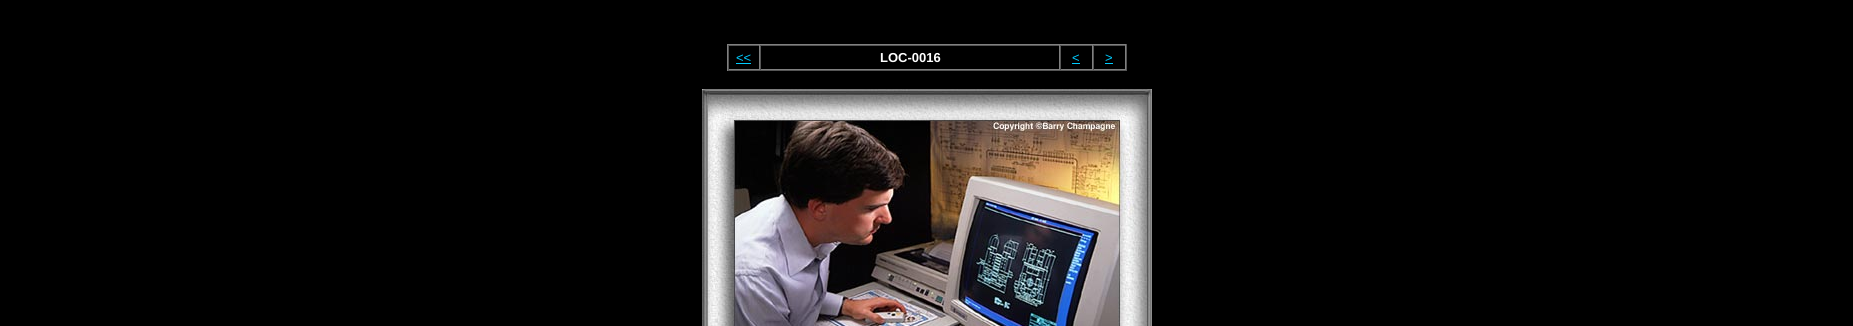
import math
import cairo


def use_color(cr, r, g, b):
  cr.set_source_rgb(r / 255, g / 255, b / 255)

def text(cr, x, y, s, family, size, color, bold=False, italic=False):
  cr.select_font_face(family, cairo.FONT_SLANT_ITALIC if italic else cairo.FONT_SLANT_NORMAL, cairo.FONT_WEIGHT_BOLD if bold else cairo.FONT_WEIGHT_NORMAL)
  cr.set_font_size(size)
  use_color(cr, *color)
  cr.move_to(x, y)
  cr.show_text(s)

def box(cr, x, y, w, h, *color):
  use_color(cr, *color)
  cr.rectangle(x, y, w, h)
  cr.fill()

def picture(cr, path, x, y, w, h):
  cr.save()
  cr.set_source_surface(cairo.ImageSurface.create_from_png(path), x, y)
  cr.rectangle(x, y, w, h)
  cr.fill()
  cr.restore()

def draw(cr):
  use_color(cr, 0, 0, 0)
  cr.paint()
  box(cr, 727, 44, 400, 1, 128, 128, 128)
  box(cr, 1126, 44, 1, 27, 85, 85, 85)
  box(cr, 727, 70, 400, 1, 85, 85, 85)
  box(cr, 727, 44, 1, 27, 128, 128, 128)
  box(cr, 728, 45, 398, 1, 85, 85, 85)
  box(cr, 759, 45, 1, 25, 128, 128, 128)
  box(cr, 728, 69, 32, 1, 128, 128, 128)
  box(cr, 728, 45, 1, 25, 85, 85, 85)
  box(cr, 736, 63, 15, 1, 0, 204, 255)
  box(cr, 1059, 45, 1, 25, 128, 128, 128)
  box(cr, 760, 69, 300, 1, 128, 128, 128)
  box(cr, 760, 45, 1, 25, 85, 85, 85)
  box(cr, 1092, 45, 1, 25, 128, 128, 128)
  box(cr, 1060, 69, 33, 1, 128, 128, 128)
  box(cr, 1060, 45, 1, 25, 85, 85, 85)
  box(cr, 1072, 63, 8, 1, 0, 204, 255)
  box(cr, 1125, 45, 1, 25, 128, 128, 128)
  box(cr, 1093, 69, 33, 1, 128, 128, 128)
  box(cr, 1093, 45, 1, 25, 85, 85, 85)
  box(cr, 1105, 63, 8, 1, 0, 204, 255)
  picture(cr, "img_01.png", 702, 89, 450, 237)
  text(cr, 736, 62, "<<", "Liberation Sans", 13, (0, 204, 255))
  text(cr, 880, 62, "LOC-0016", "Liberation Sans", 13, (255, 255, 255), bold=True)
  text(cr, 1072, 62, "<", "Liberation Sans", 13, (0, 204, 255))
  text(cr, 1105, 62, ">", "Liberation Sans", 13, (0, 204, 255))


surface = cairo.ImageSurface(cairo.FORMAT_RGB24, 1853, 326)
cr = cairo.Context(surface)
options = cairo.FontOptions()
options.set_hint_metrics(cairo.HINT_METRICS_OFF)
options.set_hint_style(cairo.HINT_STYLE_NONE)
cr.set_font_options(options)
cr.set_miter_limit(4)
draw(cr)
surface.write_to_png("out.png")
